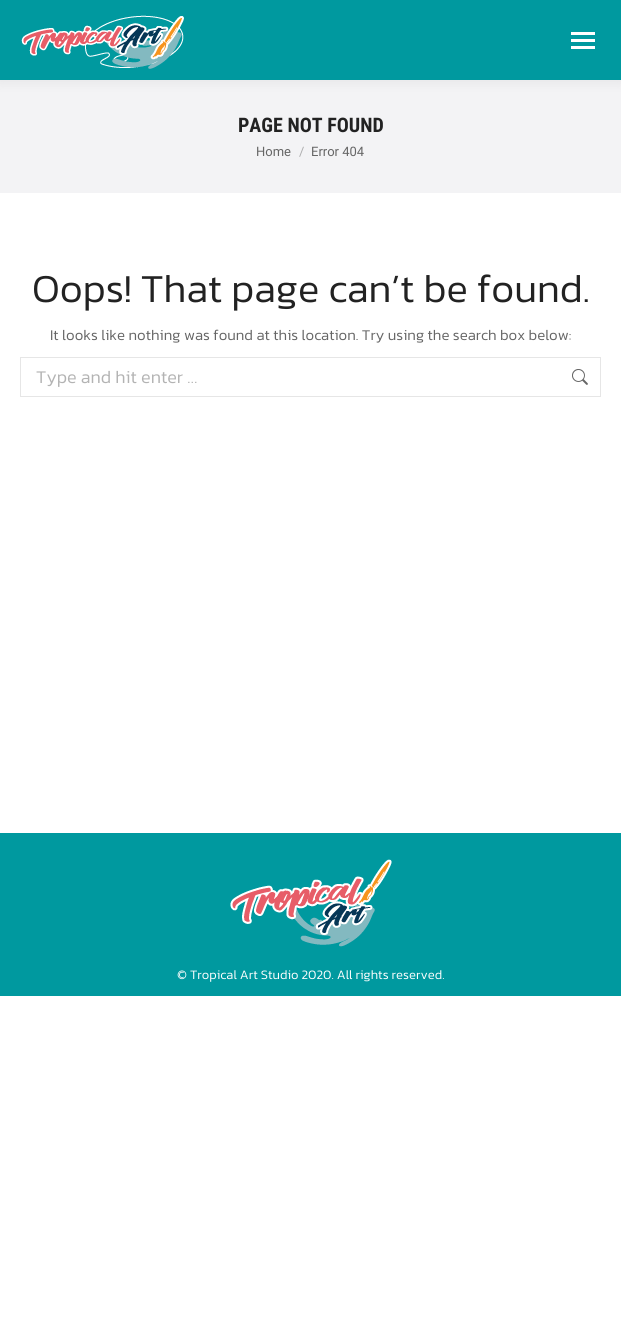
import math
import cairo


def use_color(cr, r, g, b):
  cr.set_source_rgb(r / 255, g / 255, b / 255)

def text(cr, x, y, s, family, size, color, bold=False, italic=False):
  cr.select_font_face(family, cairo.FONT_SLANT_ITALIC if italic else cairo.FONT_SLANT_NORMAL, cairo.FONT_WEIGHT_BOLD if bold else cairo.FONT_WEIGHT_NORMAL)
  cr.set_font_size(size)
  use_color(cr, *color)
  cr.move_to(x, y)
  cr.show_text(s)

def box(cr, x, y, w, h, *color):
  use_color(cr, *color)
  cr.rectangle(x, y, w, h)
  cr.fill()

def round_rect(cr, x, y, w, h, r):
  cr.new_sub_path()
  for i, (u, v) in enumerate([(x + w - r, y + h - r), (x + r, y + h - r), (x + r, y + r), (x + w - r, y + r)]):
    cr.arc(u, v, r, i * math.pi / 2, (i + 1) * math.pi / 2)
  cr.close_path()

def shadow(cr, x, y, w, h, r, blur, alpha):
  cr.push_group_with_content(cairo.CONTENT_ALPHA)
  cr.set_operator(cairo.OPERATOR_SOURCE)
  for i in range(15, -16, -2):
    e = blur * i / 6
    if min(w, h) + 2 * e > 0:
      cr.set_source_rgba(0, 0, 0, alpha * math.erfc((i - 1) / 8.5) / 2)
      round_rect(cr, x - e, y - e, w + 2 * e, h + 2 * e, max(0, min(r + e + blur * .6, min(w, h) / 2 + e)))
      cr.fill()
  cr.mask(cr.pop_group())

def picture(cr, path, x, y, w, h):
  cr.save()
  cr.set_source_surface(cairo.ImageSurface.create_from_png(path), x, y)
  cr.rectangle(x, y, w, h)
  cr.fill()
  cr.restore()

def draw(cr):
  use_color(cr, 255, 255, 255)
  cr.paint()
  box(cr, 0, 80, 621, 113, 243, 243, 245)
  use_color(cr, 0, 0, 0)
  shadow(cr, -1, -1, 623, 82, 0, 7.5, 0.07)
  box(cr, 0, 0, 621, 80, 0, 153, 159)
  picture(cr, "img_01.png", 21, 15, 163, 54)
  box(cr, 571, 32, 24, 3, 255, 255, 255)
  box(cr, 571, 39, 24, 3, 255, 255, 255)
  box(cr, 571, 46, 24, 3, 255, 255, 255)
  cr.rectangle(20.5, 357.5, 580, 39)
  use_color(cr, 230, 230, 230)
  cr.set_line_width(1)
  cr.stroke()
  picture(cr, "img_02.png", 572, 369, 16, 16)
  box(cr, 0, 833, 621, 163, 0, 153, 159)
  picture(cr, "img_03.png", 230, 859, 162, 88)
  text(cr, 238, 132, "PAGE NOT FOUND", "Roboto Condensed", 20, (34, 34, 34), bold=True)
  text(cr, 256, 156, "Home", "Roboto", 13, (102, 102, 102))
  text(cr, 299, 156, "/", "Roboto", 13, (173, 173, 174))
  text(cr, 311, 156, "Error 404", "Roboto", 13, (102, 102, 102))
  text(cr, 32, 302, "Oops! That page can’t be found.", "Kanit Light", 40, (34, 34, 34))
  text(cr, 50, 340, "It looks like nothing was found at this location. Try using the search box below:", "Kanit Light", 15, (102, 102, 102))
  text(cr, 36, 383, "Type and hit enter …", "Kanit Light", 18, (179, 179, 179))
  text(cr, 177, 979, "© Tropical Art Studio 2020. All rights reserved.", "Kanit Light", 13, (255, 255, 255))


surface = cairo.ImageSurface(cairo.FORMAT_RGB24, 621, 1325)
cr = cairo.Context(surface)
options = cairo.FontOptions()
options.set_hint_metrics(cairo.HINT_METRICS_OFF)
options.set_hint_style(cairo.HINT_STYLE_NONE)
cr.set_font_options(options)
cr.set_miter_limit(4)
draw(cr)
surface.write_to_png("out.png")
